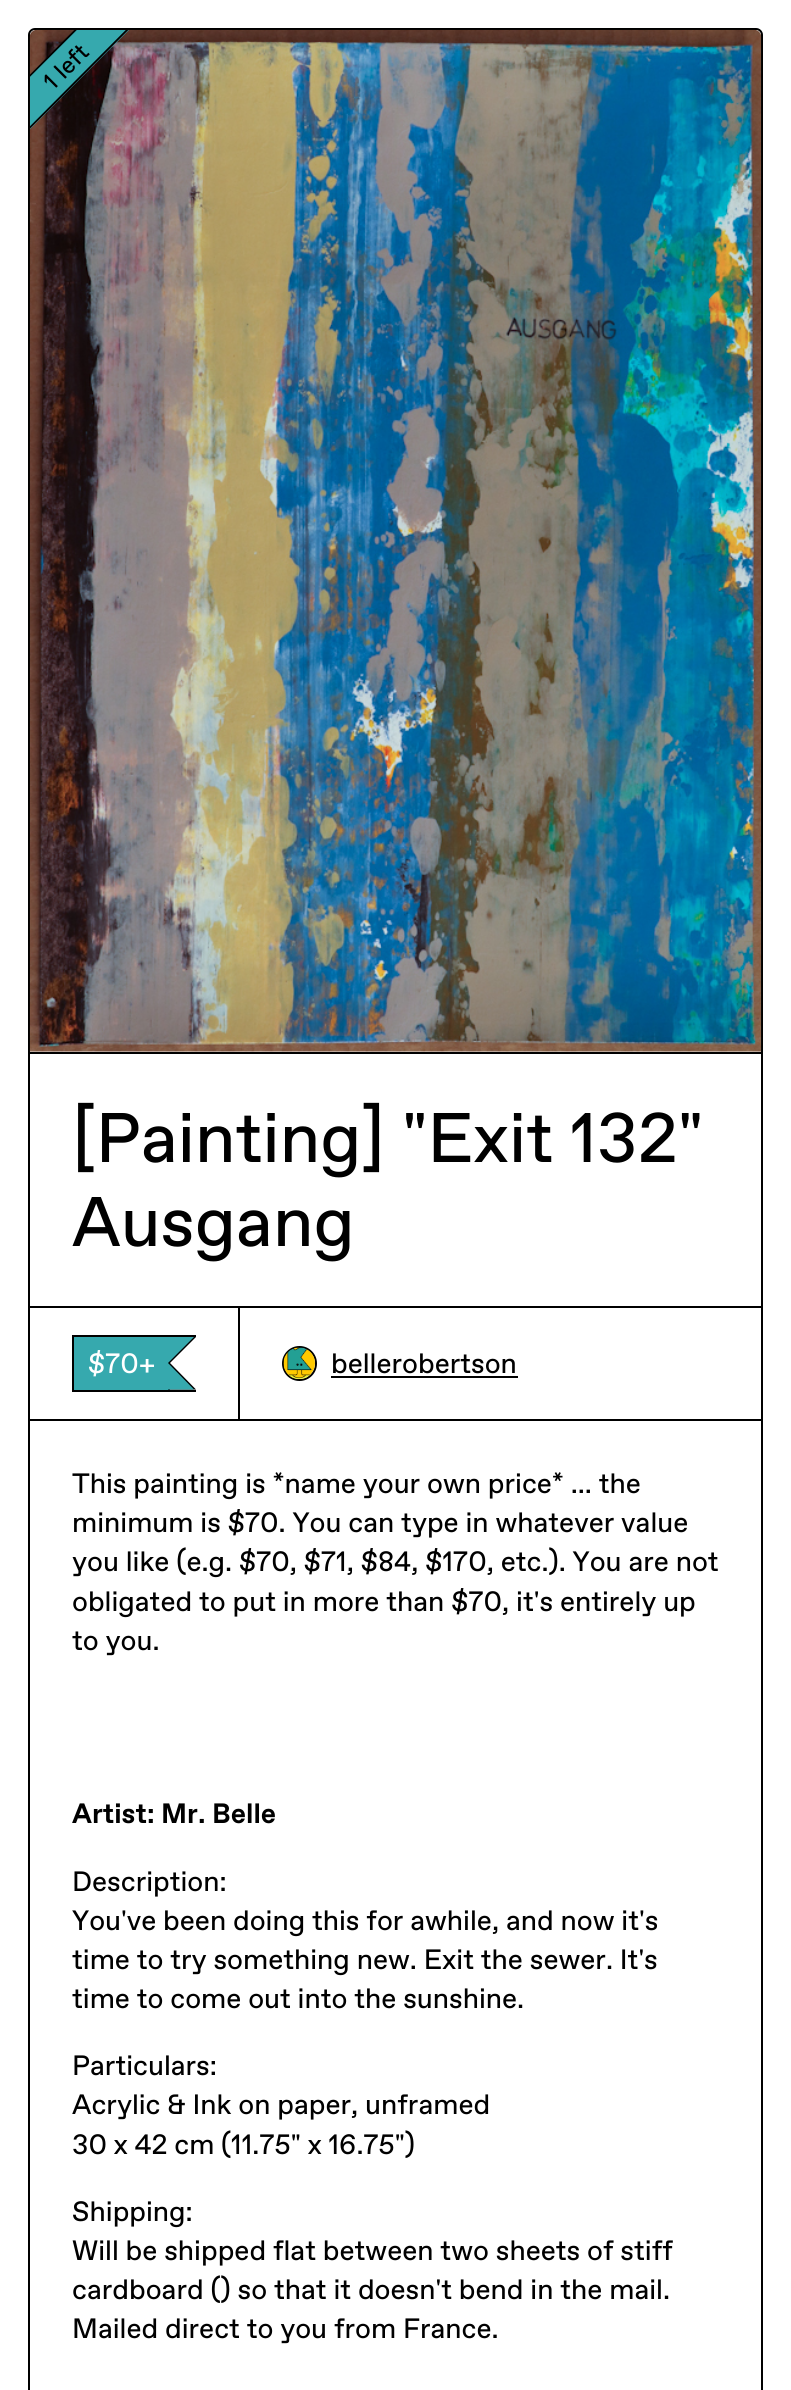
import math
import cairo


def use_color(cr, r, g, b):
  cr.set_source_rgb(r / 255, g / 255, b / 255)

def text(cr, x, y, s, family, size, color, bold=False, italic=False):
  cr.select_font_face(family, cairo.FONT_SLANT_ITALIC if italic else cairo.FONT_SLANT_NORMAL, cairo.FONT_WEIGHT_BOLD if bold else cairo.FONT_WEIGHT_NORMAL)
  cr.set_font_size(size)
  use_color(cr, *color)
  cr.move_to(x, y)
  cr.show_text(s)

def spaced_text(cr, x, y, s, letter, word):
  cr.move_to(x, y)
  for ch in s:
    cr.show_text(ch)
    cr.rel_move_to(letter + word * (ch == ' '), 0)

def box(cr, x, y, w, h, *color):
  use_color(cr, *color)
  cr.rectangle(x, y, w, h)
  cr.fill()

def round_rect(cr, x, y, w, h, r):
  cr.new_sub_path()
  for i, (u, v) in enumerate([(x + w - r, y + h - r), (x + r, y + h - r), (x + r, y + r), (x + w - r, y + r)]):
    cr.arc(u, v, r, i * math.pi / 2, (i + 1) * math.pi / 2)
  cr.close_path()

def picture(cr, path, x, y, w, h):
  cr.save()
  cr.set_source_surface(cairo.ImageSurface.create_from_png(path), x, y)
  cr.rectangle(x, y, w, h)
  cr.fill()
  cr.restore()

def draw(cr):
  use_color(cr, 255, 255, 255)
  cr.paint()
  round_rect(cr, 29, 29, 733, 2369, 6)
  use_color(cr, 0, 0, 0)
  cr.stroke()
  box(cr, 30, 1052, 731, 2, 0, 0, 0)
  picture(cr, "img_01.png", 29, 29, 733, 1023)
  use_color(cr, 54, 169, 174)
  cr.new_path()
  cr.move_to(129, 30)
  cr.line_to(30, 129)
  cr.line_to(30, 75)
  cr.line_to(75, 30)
  cr.close_path()
  cr.fill()
  cr.save()
  cr.new_path()
  cr.move_to(30, 74.5)
  cr.line_to(74.5, 29.5)
  cr.line_to(129, 30)
  cr.line_to(30, 128.5)
  cr.close_path()
  cr.clip()
  cr.new_path()
  cr.move_to(4, 101.5)
  cr.line_to(101.5, 4)
  cr.line_to(127.5, 29.5)
  cr.line_to(30, 127.5)
  cr.close_path()
  use_color(cr, 0, 0, 0)
  cr.set_line_width(1.8)
  cr.stroke()
  cr.restore()
  box(cr, 240, 1306, 521, 2, 0, 0, 0)
  cr.rectangle(29, 1307, 210, 113)
  cr.stroke()
  box(cr, 72, 1335, 124, 2, 0, 0, 0)
  box(cr, 72, 1390, 124, 2, 0, 0, 0)
  box(cr, 72, 1335, 2, 56, 0, 0, 0)
  box(cr, 74, 1337, 94, 53, 54, 169, 174)
  use_color(cr, 0, 0, 0)
  cr.new_path()
  cr.move_to(168, 1337)
  cr.line_to(196, 1337)
  cr.line_to(170, 1363)
  cr.close_path()
  cr.move_to(196, 1389.5)
  cr.line_to(168, 1389.5)
  cr.line_to(170, 1363)
  cr.close_path()
  cr.fill()
  box(cr, 168, 1361, 2, 29, 0, 0, 0)
  use_color(cr, 54, 169, 174)
  cr.new_path()
  cr.move_to(166, 1337)
  cr.line_to(194, 1337)
  cr.line_to(168, 1363)
  cr.close_path()
  cr.move_to(194, 1389.5)
  cr.line_to(166, 1389.5)
  cr.line_to(168, 1363)
  cr.close_path()
  cr.fill()
  cr.arc(299.5, 1363.5, 16.5, 0, 2 * math.pi)
  use_color(cr, 0, 0, 0)
  cr.stroke()
  picture(cr, "img_02.png", 283, 1347, 32, 32)
  box(cr, 331, 1376, 187, 2, 0, 0, 0)
  box(cr, 240, 1419, 521, 2, 0, 0, 0)
  cr.save()
  cr.translate(64, 80)
  cr.rotate(-45 * math.pi / 180)
  text(cr, 0, 0, "left", "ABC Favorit", 24, (0, 0, 0))
  cr.restore()
  cr.save()
  cr.translate(53, 91)
  cr.rotate(-45 * math.pi / 180)
  text(cr, 0, 0, "1", "ABC Favorit", 24, (0, 0, 0))
  cr.restore()
  text(cr, 72, 1162, "[Painting] \"Exit 132\"", "ABC Favorit", 70, (0, 0, 0))
  text(cr, 72, 1246, "Ausgang", "ABC Favorit", 70, (0, 0, 0))
  text(cr, 88, 1373, "$70+", "ABC Favorit", 28, (255, 255, 255))
  text(cr, 331, 1373, "bellerobertson", "ABC Favorit", 28, (0, 0, 0))
  text(cr, 72, 1493, "This painting is *name your own price* ... the", "ABC Favorit", 28, (0, 0, 0))
  text(cr, 72, 1532, "minimum is $70. You can type in whatever value", "ABC Favorit", 28, (0, 0, 0))
  text(cr, 72, 1571, "you like (e.g. $70, $71, $84, $170, etc.). You are not", "ABC Favorit", 28, (0, 0, 0))
  text(cr, 72, 1611, "obligated to put in more than $70, it's entirely up", "ABC Favorit", 28, (0, 0, 0))
  text(cr, 72, 1650, "to you.", "ABC Favorit", 28, (0, 0, 0))
  text(cr, 72, 1823, "Artist: Mr. Belle", "ABC Favorit", 28, (0, 0, 0), bold=True)
  text(cr, 72, 1891, "Description:", "ABC Favorit", 28, (0, 0, 0))
  text(cr, 72, 1930, "You've been doing this for awhile, and now it's", "ABC Favorit", 28, (0, 0, 0))
  text(cr, 72, 1969, "time to try something new. Exit the sewer. It's", "ABC Favorit", 28, (0, 0, 0))
  text(cr, 72, 2008, "time to come out into the sunshine.", "ABC Favorit", 28, (0, 0, 0))
  text(cr, 72, 2075, "Particulars:", "ABC Favorit", 28, (0, 0, 0))
  text(cr, 72, 2114, "Acrylic & Ink on paper, unframed", "ABC Favorit", 28, (0, 0, 0))
  spaced_text(cr, 72, 2154, "30 x 42 cm (11.75\" x 16.75\")", 0, -0.25)
  text(cr, 72, 2221, "Shipping:", "ABC Favorit", 28, (0, 0, 0))
  text(cr, 72, 2260, "Will be shipped flat between two sheets of stiff", "ABC Favorit", 28, (0, 0, 0))
  text(cr, 72, 2299, "cardboard () so that it doesn't bend in the mail.", "ABC Favorit", 28, (0, 0, 0))
  text(cr, 72, 2338, "Mailed direct to you from France.", "ABC Favorit", 28, (0, 0, 0))


surface = cairo.ImageSurface(cairo.FORMAT_RGB24, 791, 2390)
cr = cairo.Context(surface)
options = cairo.FontOptions()
options.set_hint_metrics(cairo.HINT_METRICS_OFF)
options.set_hint_style(cairo.HINT_STYLE_NONE)
cr.set_font_options(options)
cr.set_miter_limit(4)
draw(cr)
surface.write_to_png("out.png")
